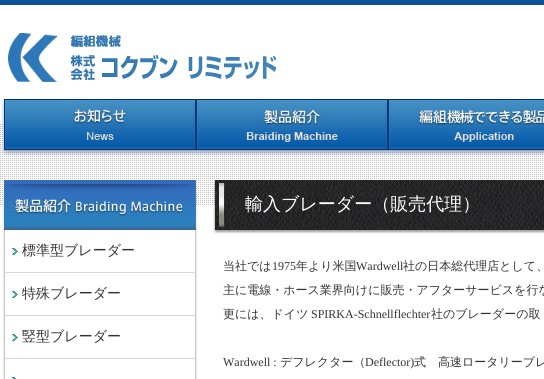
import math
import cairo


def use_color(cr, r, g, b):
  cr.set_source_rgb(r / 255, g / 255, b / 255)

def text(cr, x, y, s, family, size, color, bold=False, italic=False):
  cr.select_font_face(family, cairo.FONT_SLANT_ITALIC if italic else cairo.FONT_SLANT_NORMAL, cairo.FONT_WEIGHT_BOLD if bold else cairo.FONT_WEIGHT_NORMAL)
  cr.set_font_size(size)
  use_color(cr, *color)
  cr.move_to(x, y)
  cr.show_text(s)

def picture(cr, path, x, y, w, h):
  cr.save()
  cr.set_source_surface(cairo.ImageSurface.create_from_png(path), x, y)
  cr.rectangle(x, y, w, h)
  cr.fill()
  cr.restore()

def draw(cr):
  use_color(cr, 255, 255, 255)
  cr.paint()
  picture(cr, "img_01.png", 0, 0, 544, 205)
  picture(cr, "img_02.png", 8, 33, 269, 49)
  picture(cr, "img_03.png", 1, 99, 196, 57)
  picture(cr, "img_04.png", 197, 99, 192, 57)
  picture(cr, "img_05.png", 389, 99, 155, 57)
  picture(cr, "img_06.png", 2, 180, 196, 50)
  picture(cr, "img_07.png", 2, 230, 196, 43)
  picture(cr, "img_07.png", 2, 273, 196, 43)
  picture(cr, "img_07.png", 2, 316, 196, 43)
  picture(cr, "img_08.png", 2, 359, 196, 20)
  picture(cr, "img_09.png", 213, 180, 331, 54)
  text(cr, 22, 255, "標準型ブレーダー", "WenQuanYi Zen Hei Medium", 14, (51, 51, 51))
  text(cr, 22, 298, "特殊ブレーダー", "WenQuanYi Zen Hei Medium", 14, (51, 51, 51))
  text(cr, 22, 341, "竪型ブレーダー", "WenQuanYi Zen Hei Medium", 14, (51, 51, 51))
  text(cr, 245, 210, "輸入ブレーダー（販売代理）", "WenQuanYi Zen Hei Medium", 18, (255, 255, 255))
  text(cr, 223, 270, "当社では", "WenQuanYi Zen Hei Medium", 12, (51, 51, 51))
  text(cr, 272, 270, "1975", "Liberation Serif", 12, (51, 51, 51))
  text(cr, 296, 270, "年より米国", "WenQuanYi Zen Hei Medium", 12, (51, 51, 51))
  text(cr, 356, 270, "Wardwell", "Liberation Serif", 12, (51, 51, 51))
  text(cr, 403, 270, "社の日本総代理店として、", "WenQuanYi Zen Hei Medium", 12, (51, 51, 51))
  text(cr, 223, 294, "主に電線・ホース業界向けに販売・アフターサービスを行な", "WenQuanYi Zen Hei Medium", 12, (51, 51, 51))
  text(cr, 223, 318, "更には、ドイツ", "WenQuanYi Zen Hei Medium", 12, (51, 51, 51))
  text(cr, 311, 318, "SPIRKA-Schnellflechter", "Liberation Serif", 12, (51, 51, 51))
  text(cr, 431, 318, "社のブレーダーの取", "WenQuanYi Zen Hei Medium", 12, (51, 51, 51))
  text(cr, 223, 366, "Wardwell :", "Liberation Serif", 12, (51, 51, 51))
  text(cr, 280, 366, "デフレクター（", "WenQuanYi Zen Hei Medium", 12, (51, 51, 51))
  text(cr, 365, 366, "Deflector)", "Liberation Serif", 12, (51, 51, 51))
  text(cr, 414, 366, "式　高速ロータリーブレ", "WenQuanYi Zen Hei Medium", 12, (51, 51, 51))


surface = cairo.ImageSurface(cairo.FORMAT_RGB24, 544, 379)
cr = cairo.Context(surface)
options = cairo.FontOptions()
options.set_hint_metrics(cairo.HINT_METRICS_OFF)
options.set_hint_style(cairo.HINT_STYLE_NONE)
cr.set_font_options(options)
cr.set_miter_limit(4)
draw(cr)
surface.write_to_png("out.png")
